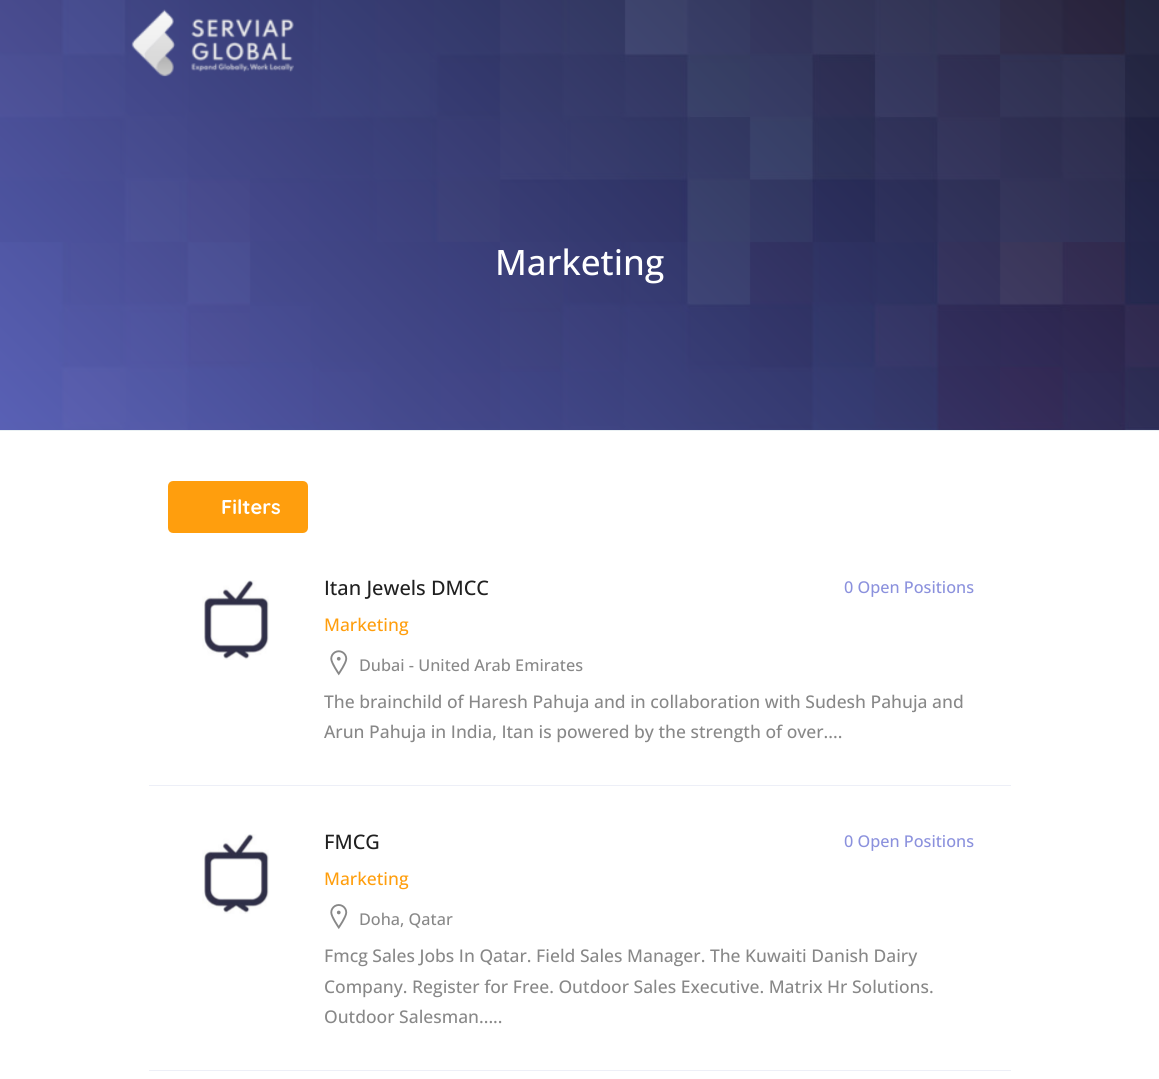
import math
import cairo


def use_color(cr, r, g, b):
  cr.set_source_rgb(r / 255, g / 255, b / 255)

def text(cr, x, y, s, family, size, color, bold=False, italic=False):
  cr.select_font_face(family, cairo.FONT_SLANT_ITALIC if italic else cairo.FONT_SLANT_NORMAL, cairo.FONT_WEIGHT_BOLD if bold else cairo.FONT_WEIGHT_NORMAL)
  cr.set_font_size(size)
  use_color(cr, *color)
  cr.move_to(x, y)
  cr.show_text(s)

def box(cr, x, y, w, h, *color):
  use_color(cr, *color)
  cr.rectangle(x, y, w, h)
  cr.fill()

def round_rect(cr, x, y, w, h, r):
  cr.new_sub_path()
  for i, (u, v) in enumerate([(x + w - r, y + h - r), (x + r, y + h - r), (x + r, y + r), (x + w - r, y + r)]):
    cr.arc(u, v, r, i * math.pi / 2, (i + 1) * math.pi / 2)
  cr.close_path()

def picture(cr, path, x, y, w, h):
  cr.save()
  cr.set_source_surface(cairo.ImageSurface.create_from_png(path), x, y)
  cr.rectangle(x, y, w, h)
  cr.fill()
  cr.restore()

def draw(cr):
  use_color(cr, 255, 255, 255)
  cr.paint()
  picture(cr, "img_02.png", 0, 0, 1159, 430)
  picture(cr, "img_01.png", 131, 9, 163, 68)
  box(cr, 0, 430, 1159, 1, 233, 240, 243)
  use_color(cr, 255, 158, 13)
  round_rect(cr, 169.5, 482.5, 137, 49, 3.5)
  cr.fill_preserve()
  cr.set_line_width(3)
  cr.stroke()
  picture(cr, "img_03.png", 202, 580, 67, 80)
  picture(cr, "img_04.png", 330, 650, 18, 26)
  box(cr, 149, 785, 862, 1, 237, 239, 247)
  picture(cr, "img_05.png", 202, 834, 67, 80)
  picture(cr, "img_06.png", 330, 904, 18, 25)
  box(cr, 149, 1070, 862, 1, 237, 239, 247)
  text(cr, 495, 275, "Marketing", "Open Sans Medium", 35, (255, 255, 255))
  text(cr, 221, 514, "Filters", "Quicksand", 20, (255, 255, 255), bold=True)
  text(cr, 324, 595, "Itan Jewels DMCC", "Open Sans Medium", 20, (32, 32, 32))
  text(cr, 844, 593, "0 Open Positions", "Open Sans Medium", 16.25, (139, 145, 221))
  text(cr, 324, 631, "Marketing", "Open Sans Medium", 17.5, (255, 158, 13))
  text(cr, 359, 671, "Dubai - United Arab Emirates", "Open Sans Medium", 16.25, (136, 136, 136))
  text(cr, 324, 708, "The brainchild of Haresh Pahuja and in collaboration with Sudesh Pahuja and", "Open Sans Medium", 17.5, (136, 136, 136))
  text(cr, 324, 738, "Arun Pahuja in India, Itan is powered by the strength of over....", "Open Sans Medium", 17.5, (136, 136, 136))
  text(cr, 324, 849, "FMCG", "Open Sans Medium", 20, (32, 32, 32))
  text(cr, 844, 847, "0 Open Positions", "Open Sans Medium", 16.25, (139, 145, 221))
  text(cr, 324, 885, "Marketing", "Open Sans Medium", 17.5, (255, 158, 13))
  text(cr, 359, 925, "Doha, Qatar", "Open Sans Medium", 16.25, (136, 136, 136))
  text(cr, 324, 962, "Fmcg Sales Jobs In Qatar. Field Sales Manager. The Kuwaiti Danish Dairy", "Open Sans Medium", 17.5, (136, 136, 136))
  text(cr, 324, 993, "Company. Register for Free. Outdoor Sales Executive. Matrix Hr Solutions.", "Open Sans Medium", 17.5, (136, 136, 136))
  text(cr, 324, 1023, "Outdoor Salesman.....", "Open Sans Medium", 17.5, (136, 136, 136))


surface = cairo.ImageSurface(cairo.FORMAT_RGB24, 1159, 1079)
cr = cairo.Context(surface)
options = cairo.FontOptions()
options.set_hint_metrics(cairo.HINT_METRICS_OFF)
options.set_hint_style(cairo.HINT_STYLE_NONE)
cr.set_font_options(options)
cr.set_miter_limit(4)
draw(cr)
surface.write_to_png("out.png")
